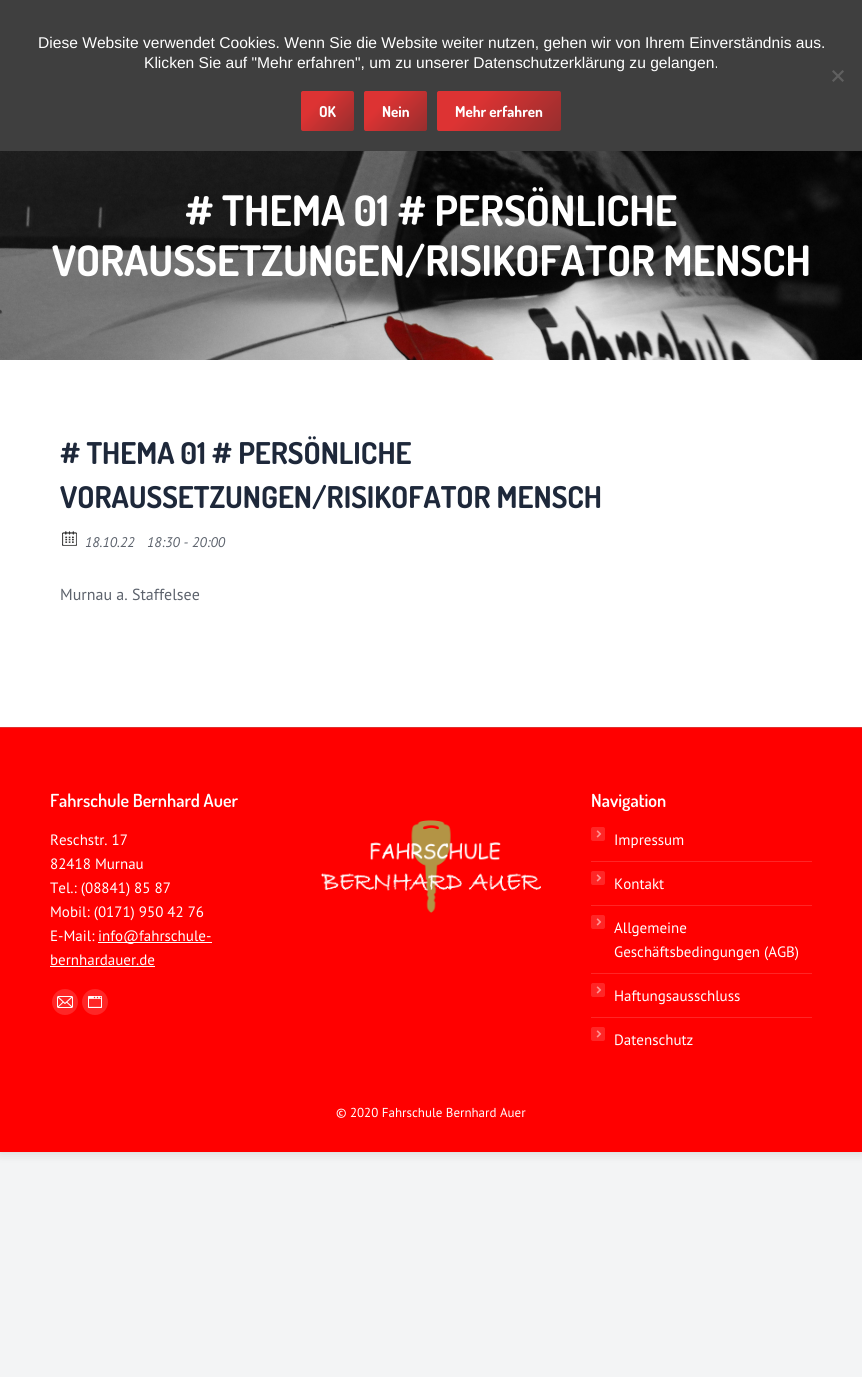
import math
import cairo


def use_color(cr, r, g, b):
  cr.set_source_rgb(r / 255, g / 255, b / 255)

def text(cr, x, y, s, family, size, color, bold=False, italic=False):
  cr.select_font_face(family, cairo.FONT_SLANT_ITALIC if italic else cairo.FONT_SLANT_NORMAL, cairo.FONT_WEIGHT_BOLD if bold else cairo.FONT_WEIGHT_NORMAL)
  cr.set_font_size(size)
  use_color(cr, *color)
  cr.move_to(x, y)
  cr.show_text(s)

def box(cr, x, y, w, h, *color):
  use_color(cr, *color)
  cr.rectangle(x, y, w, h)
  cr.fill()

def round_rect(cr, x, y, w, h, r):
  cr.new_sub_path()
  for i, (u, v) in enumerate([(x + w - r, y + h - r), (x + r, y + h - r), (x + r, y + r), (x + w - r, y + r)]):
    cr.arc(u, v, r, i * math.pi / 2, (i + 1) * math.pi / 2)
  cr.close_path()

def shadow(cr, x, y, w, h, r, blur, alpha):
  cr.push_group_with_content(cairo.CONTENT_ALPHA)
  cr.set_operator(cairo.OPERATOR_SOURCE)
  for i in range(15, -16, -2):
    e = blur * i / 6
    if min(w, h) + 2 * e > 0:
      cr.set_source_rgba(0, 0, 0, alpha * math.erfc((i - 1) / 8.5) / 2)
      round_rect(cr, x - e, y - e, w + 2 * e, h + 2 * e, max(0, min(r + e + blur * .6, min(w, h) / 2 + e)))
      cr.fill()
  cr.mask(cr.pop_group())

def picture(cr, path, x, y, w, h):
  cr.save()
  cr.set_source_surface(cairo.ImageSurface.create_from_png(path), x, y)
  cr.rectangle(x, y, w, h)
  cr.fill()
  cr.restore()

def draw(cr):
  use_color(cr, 243, 244, 245)
  cr.paint()
  use_color(cr, 0, 0, 0)
  shadow(cr, 0, 0, 862, 1152, 0, 6, 0.15)
  box(cr, 0, 0, 862, 151, 63, 63, 63)
  use_color(cr, 96, 96, 96)
  cr.new_path()
  cr.move_to(842.5, 70)
  cr.line_to(844, 71.5)
  cr.line_to(833.5, 82)
  cr.line_to(832, 80.5)
  cr.close_path()
  cr.fill()
  cr.new_path()
  cr.move_to(832, 71.5)
  cr.line_to(833.5, 70)
  cr.line_to(844, 80.5)
  cr.line_to(842.5, 82)
  cr.close_path()
  cr.fill()
  gradient = cairo.LinearGradient(304, 88, 351, 134)
  gradient.add_color_stop_rgba(0.3, 0.867, 0.2, 0.2, 1)
  gradient.add_color_stop_rgba(1, 0.588, 0.18, 0.18, 1)
  cr.set_source(gradient)
  round_rect(cr, 301, 91, 53, 40, 2)
  cr.fill()
  gradient = cairo.LinearGradient(370, 85, 421, 137)
  gradient.add_color_stop_rgba(0.3, 0.867, 0.2, 0.2, 1)
  gradient.add_color_stop_rgba(1, 0.588, 0.18, 0.18, 1)
  cr.set_source(gradient)
  round_rect(cr, 364, 91, 63, 40, 2)
  cr.fill()
  gradient = cairo.LinearGradient(458, 70, 540, 152)
  gradient.add_color_stop_rgba(0.3, 0.867, 0.2, 0.2, 1)
  gradient.add_color_stop_rgba(1, 0.588, 0.18, 0.18, 1)
  cr.set_source(gradient)
  round_rect(cr, 437, 91, 124, 40, 2)
  cr.fill()
  box(cr, 0, 360, 862, 367, 255, 255, 255)
  picture(cr, "img_01.png", 0, 151, 862, 209)
  picture(cr, "img_02.png", 62, 531, 15, 15)
  box(cr, 0, 728, 862, 424, 255, 0, 0)
  box(cr, 0, 727, 862, 1, 222, 49, 49)
  box(cr, 98, 942, 114, 1, 255, 255, 255)
  box(cr, 50, 966, 105, 1, 255, 255, 255)
  use_color(cr, 255, 38, 38)
  cr.arc(65, 1002, 13, 0, 2 * math.pi)
  cr.fill()
  picture(cr, "img_03.png", 57, 996, 16, 12)
  cr.arc(95, 1002, 13, 0, 2 * math.pi)
  cr.fill()
  picture(cr, "img_04.png", 88, 996, 14, 12)
  picture(cr, "img_05.png", 321, 820, 220, 93)
  round_rect(cr, 591, 827, 14, 14, 2)
  cr.fill()
  picture(cr, "img_06.png", 596, 830, 6, 8)
  box(cr, 591, 861, 221, 1, 255, 38, 38)
  round_rect(cr, 591, 871, 14, 14, 2)
  cr.fill()
  picture(cr, "img_06.png", 596, 874, 6, 8)
  box(cr, 591, 905, 221, 1, 255, 38, 38)
  round_rect(cr, 591, 915, 14, 14, 2)
  cr.fill()
  picture(cr, "img_06.png", 596, 918, 6, 8)
  box(cr, 591, 973, 221, 1, 255, 38, 38)
  round_rect(cr, 591, 983, 14, 14, 2)
  cr.fill()
  picture(cr, "img_06.png", 596, 986, 6, 8)
  box(cr, 591, 1017, 221, 1, 255, 38, 38)
  round_rect(cr, 591, 1027, 14, 14, 2)
  cr.fill()
  picture(cr, "img_06.png", 596, 1030, 6, 8)
  text(cr, 38, 48, "Diese Website verwendet Cookies. Wenn Sie die Website weiter nutzen, gehen wir von Ihrem Einverständnis aus.", "Liberation Sans", 15.6, (255, 255, 255))
  text(cr, 144, 68, "Klicken Sie auf \"Mehr erfahren\", um zu unserer Datenschutzerklärung zu gelangen.", "Liberation Sans", 15.6, (255, 255, 255))
  text(cr, 319, 117, "OK", "Dosis", 15, (255, 255, 255), bold=True)
  text(cr, 382, 117, "Nein", "Dosis", 15, (255, 255, 255), bold=True)
  text(cr, 455, 117, "Mehr erfahren", "Dosis", 15, (255, 255, 255), bold=True)
  text(cr, 185, 226, "# THEMA 01 # PERSÖNLICHE", "Dosis", 42, (255, 255, 255), bold=True)
  text(cr, 52, 276, "VORAUSSETZUNGEN/RISIKOFATOR MENSCH", "Dosis", 42, (255, 255, 255), bold=True)
  text(cr, 60, 464, "# THEMA 01 # PERSÖNLICHE", "Dosis", 30, (30, 40, 58), bold=True)
  text(cr, 60, 508, "VORAUSSETZUNGEN/RISIKOFATOR MENSCH", "Dosis", 30, (30, 40, 58), bold=True)
  text(cr, 85, 547, "18.10.22", "PT Sans", 14, (92, 98, 108), italic=True)
  text(cr, 147, 547, "18:30 - 20:00", "PT Sans", 14, (92, 98, 108), italic=True)
  text(cr, 60, 600, "Murnau a. Staffelsee", "PT Sans", 16, (92, 98, 108))
  text(cr, 50, 807, "Fahrschule Bernhard Auer", "Dosis SemiBold", 18, (255, 255, 255))
  text(cr, 50, 845, "Reschstr. 17", "PT Sans", 15, (255, 255, 255))
  text(cr, 50, 869, "82418 Murnau", "PT Sans", 15, (255, 255, 255))
  text(cr, 50, 893, "Tel.: (08841) 85 87", "PT Sans", 15, (255, 255, 255))
  text(cr, 50, 917, "Mobil: (0171) 950 42 76", "PT Sans", 15, (255, 255, 255))
  text(cr, 50, 941, "E-Mail:", "PT Sans", 15, (255, 255, 255))
  text(cr, 98, 941, "info@fahrschule-", "PT Sans", 15, (255, 255, 255))
  text(cr, 50, 965, "bernhardauer.de", "PT Sans", 15, (255, 255, 255))
  text(cr, 591, 807, "Navigation", "Dosis SemiBold", 18, (255, 255, 255))
  text(cr, 614, 845, "Impressum", "PT Sans", 15, (255, 255, 255))
  text(cr, 614, 889, "Kontakt", "PT Sans", 15, (255, 255, 255))
  text(cr, 614, 933, "Allgemeine", "PT Sans", 15, (255, 255, 255))
  text(cr, 614, 957, "Geschäftsbedingungen (AGB)", "PT Sans", 15, (255, 255, 255))
  text(cr, 614, 1001, "Haftungsausschluss", "PT Sans", 15, (255, 255, 255))
  text(cr, 614, 1045, "Datenschutz", "PT Sans", 15, (255, 255, 255))
  text(cr, 336, 1117, "© 2020 Fahrschule Bernhard Auer", "PT Sans", 13, (255, 255, 255))


surface = cairo.ImageSurface(cairo.FORMAT_RGB24, 862, 1377)
cr = cairo.Context(surface)
options = cairo.FontOptions()
options.set_hint_metrics(cairo.HINT_METRICS_OFF)
options.set_hint_style(cairo.HINT_STYLE_NONE)
cr.set_font_options(options)
cr.set_miter_limit(4)
draw(cr)
surface.write_to_png("out.png")
